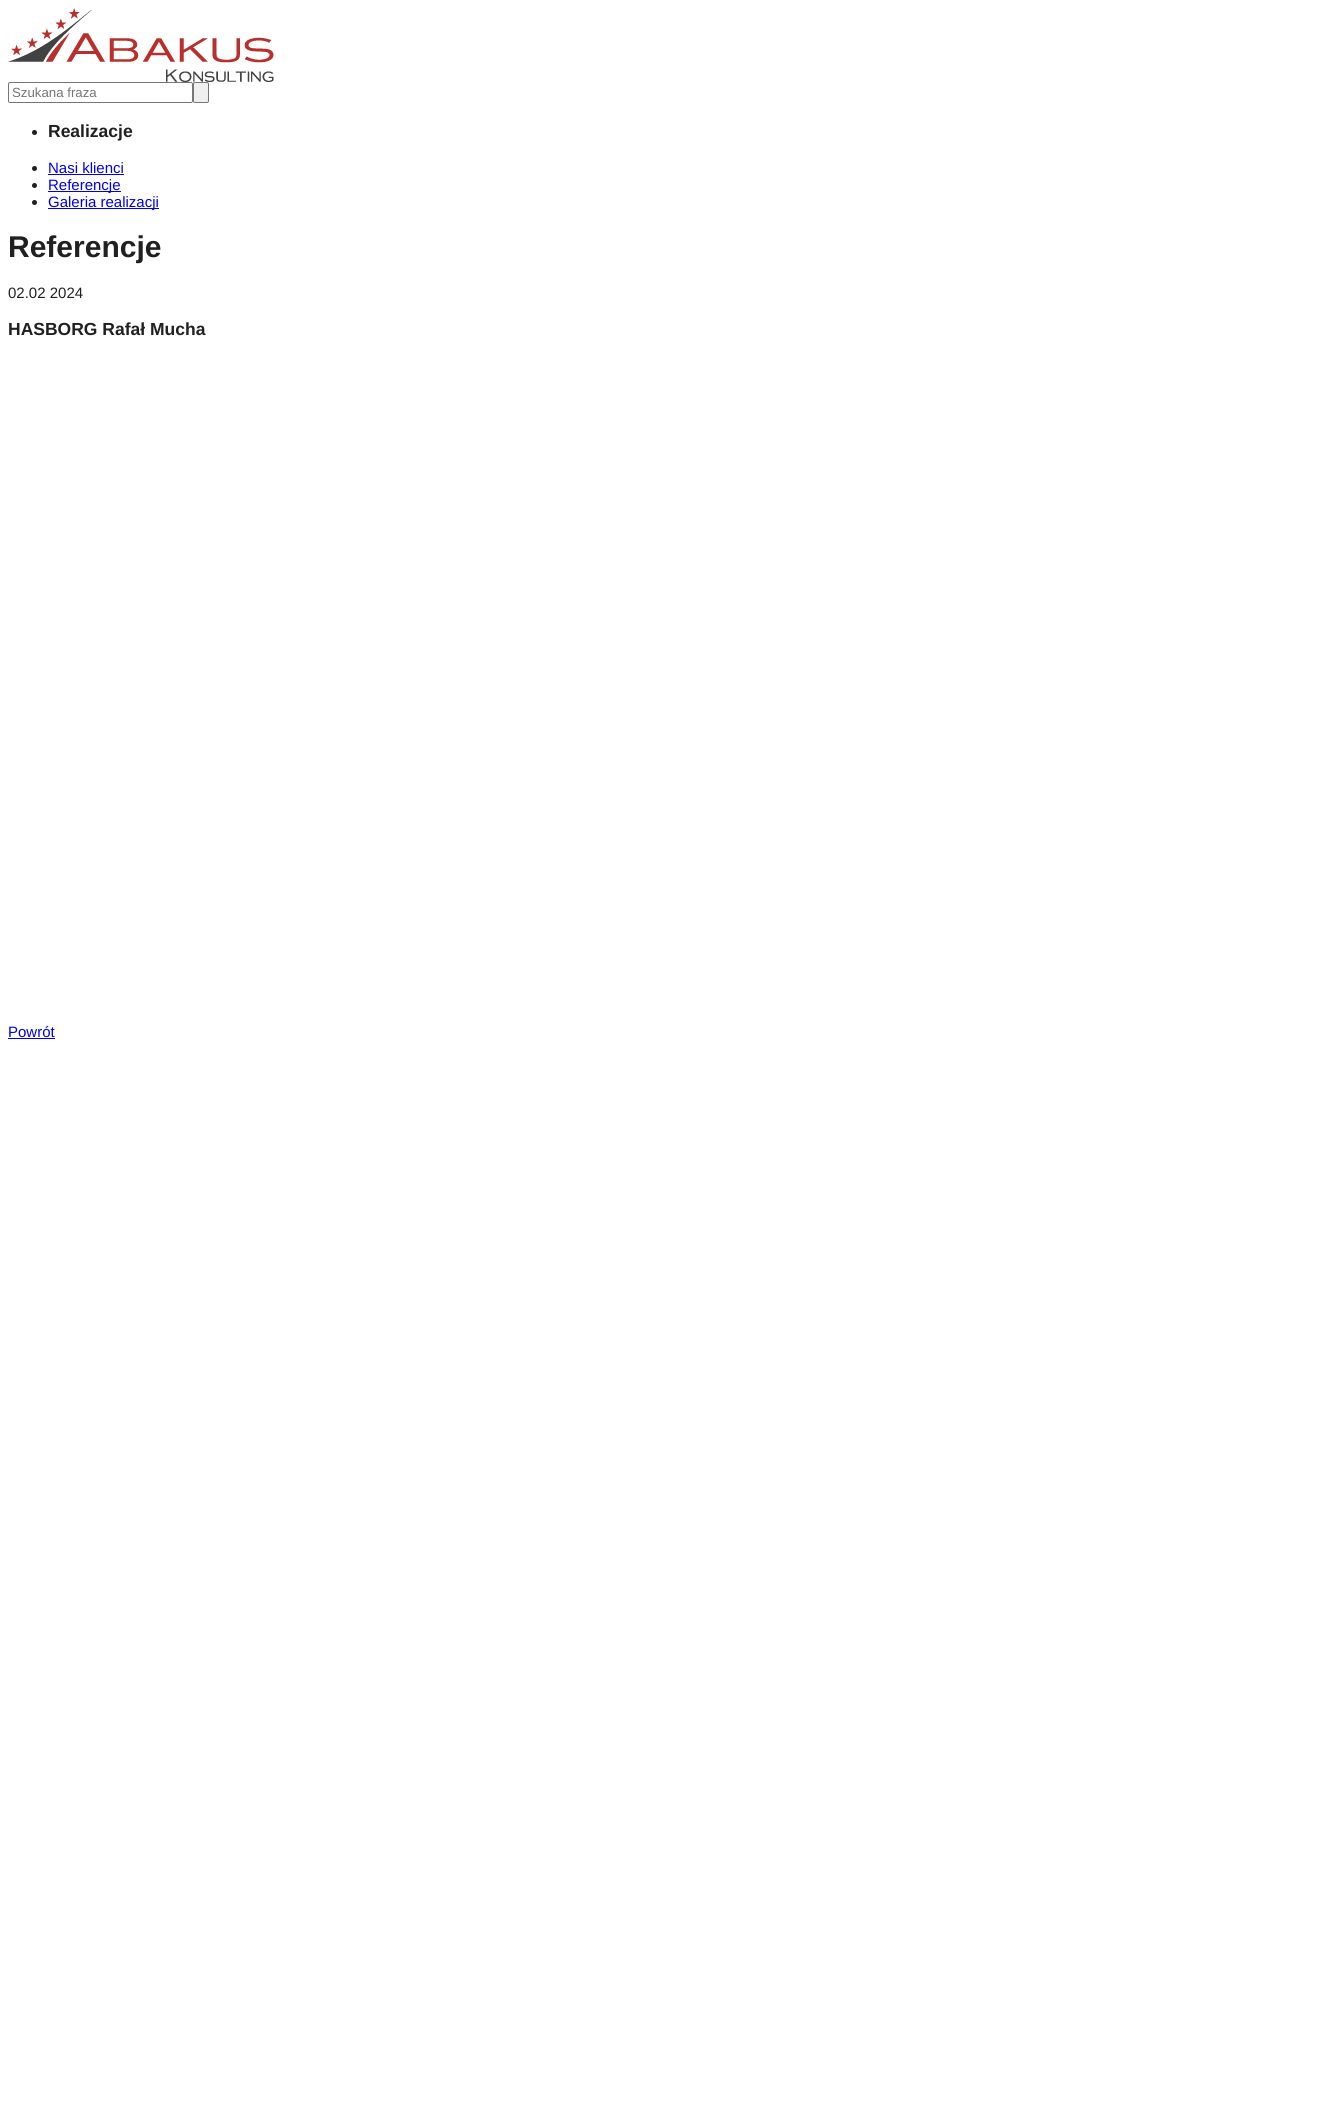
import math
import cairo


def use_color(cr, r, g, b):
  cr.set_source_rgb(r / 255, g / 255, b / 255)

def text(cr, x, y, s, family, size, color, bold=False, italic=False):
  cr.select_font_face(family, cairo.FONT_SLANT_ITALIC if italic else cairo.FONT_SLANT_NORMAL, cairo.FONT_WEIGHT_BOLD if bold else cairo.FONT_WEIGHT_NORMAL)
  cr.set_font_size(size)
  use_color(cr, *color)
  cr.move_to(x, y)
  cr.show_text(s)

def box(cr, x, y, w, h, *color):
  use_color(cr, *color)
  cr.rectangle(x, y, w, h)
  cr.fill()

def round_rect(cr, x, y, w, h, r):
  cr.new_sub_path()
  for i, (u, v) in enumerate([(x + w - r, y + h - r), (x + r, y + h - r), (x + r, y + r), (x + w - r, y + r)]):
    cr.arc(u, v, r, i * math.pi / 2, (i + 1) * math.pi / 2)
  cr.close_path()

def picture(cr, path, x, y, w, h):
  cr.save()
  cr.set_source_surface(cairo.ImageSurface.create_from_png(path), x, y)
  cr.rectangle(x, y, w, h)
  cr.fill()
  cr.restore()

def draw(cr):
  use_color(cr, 255, 255, 255)
  cr.paint()
  picture(cr, "img_01.png", 8, 8, 266, 74)
  round_rect(cr, 8.5, 82.5, 184, 20, 1.5)
  use_color(cr, 118, 118, 118)
  cr.set_line_width(1)
  cr.stroke()
  use_color(cr, 239, 239, 239)
  round_rect(cr, 193.5, 82.5, 15, 20, 1.5)
  cr.fill_preserve()
  use_color(cr, 118, 118, 118)
  cr.stroke()
  use_color(cr, 32, 32, 32)
  cr.arc(34.5, 132.5, 2.5, 0, 2 * math.pi)
  cr.fill()
  cr.arc(34.5, 168.5, 2.5, 0, 2 * math.pi)
  cr.fill()
  box(cr, 48, 174, 76, 1, 0, 0, 238)
  use_color(cr, 32, 32, 32)
  cr.arc(34.5, 185.5, 2.5, 0, 2 * math.pi)
  cr.fill()
  box(cr, 48, 191, 73, 1, 0, 0, 238)
  use_color(cr, 32, 32, 32)
  cr.arc(34.5, 202.5, 2.5, 0, 2 * math.pi)
  cr.fill()
  box(cr, 48, 208, 111, 1, 0, 0, 238)
  box(cr, 8, 1038, 47, 1, 0, 0, 238)
  text(cr, 12, 97, "Szukana fraza", "Liberation Sans", 13.25, (117, 117, 117))
  text(cr, 48, 137, "Realizacje", "Liberation Sans", 17.5, (32, 32, 32), bold=True)
  text(cr, 48, 173, "Nasi klienci", "Liberation Sans", 15, (0, 0, 238))
  text(cr, 48, 190, "Referencje", "Liberation Sans", 15, (0, 0, 238))
  text(cr, 48, 207, "Galeria realizacji", "Liberation Sans", 15, (0, 0, 238))
  text(cr, 8, 257, "Referencje", "Liberation Sans", 30, (32, 32, 32), bold=True)
  text(cr, 8, 298, "02.02 2024", "Liberation Sans", 15, (32, 32, 32))
  text(cr, 8, 335, "HASBORG Rafał Mucha", "Liberation Sans", 17.5, (32, 32, 32), bold=True)
  text(cr, 8, 1037, "Powrót", "Liberation Sans", 15, (0, 0, 238))


surface = cairo.ImageSurface(cairo.FORMAT_RGB24, 1324, 2123)
cr = cairo.Context(surface)
options = cairo.FontOptions()
options.set_hint_metrics(cairo.HINT_METRICS_OFF)
options.set_hint_style(cairo.HINT_STYLE_NONE)
cr.set_font_options(options)
cr.set_miter_limit(4)
draw(cr)
surface.write_to_png("out.png")
